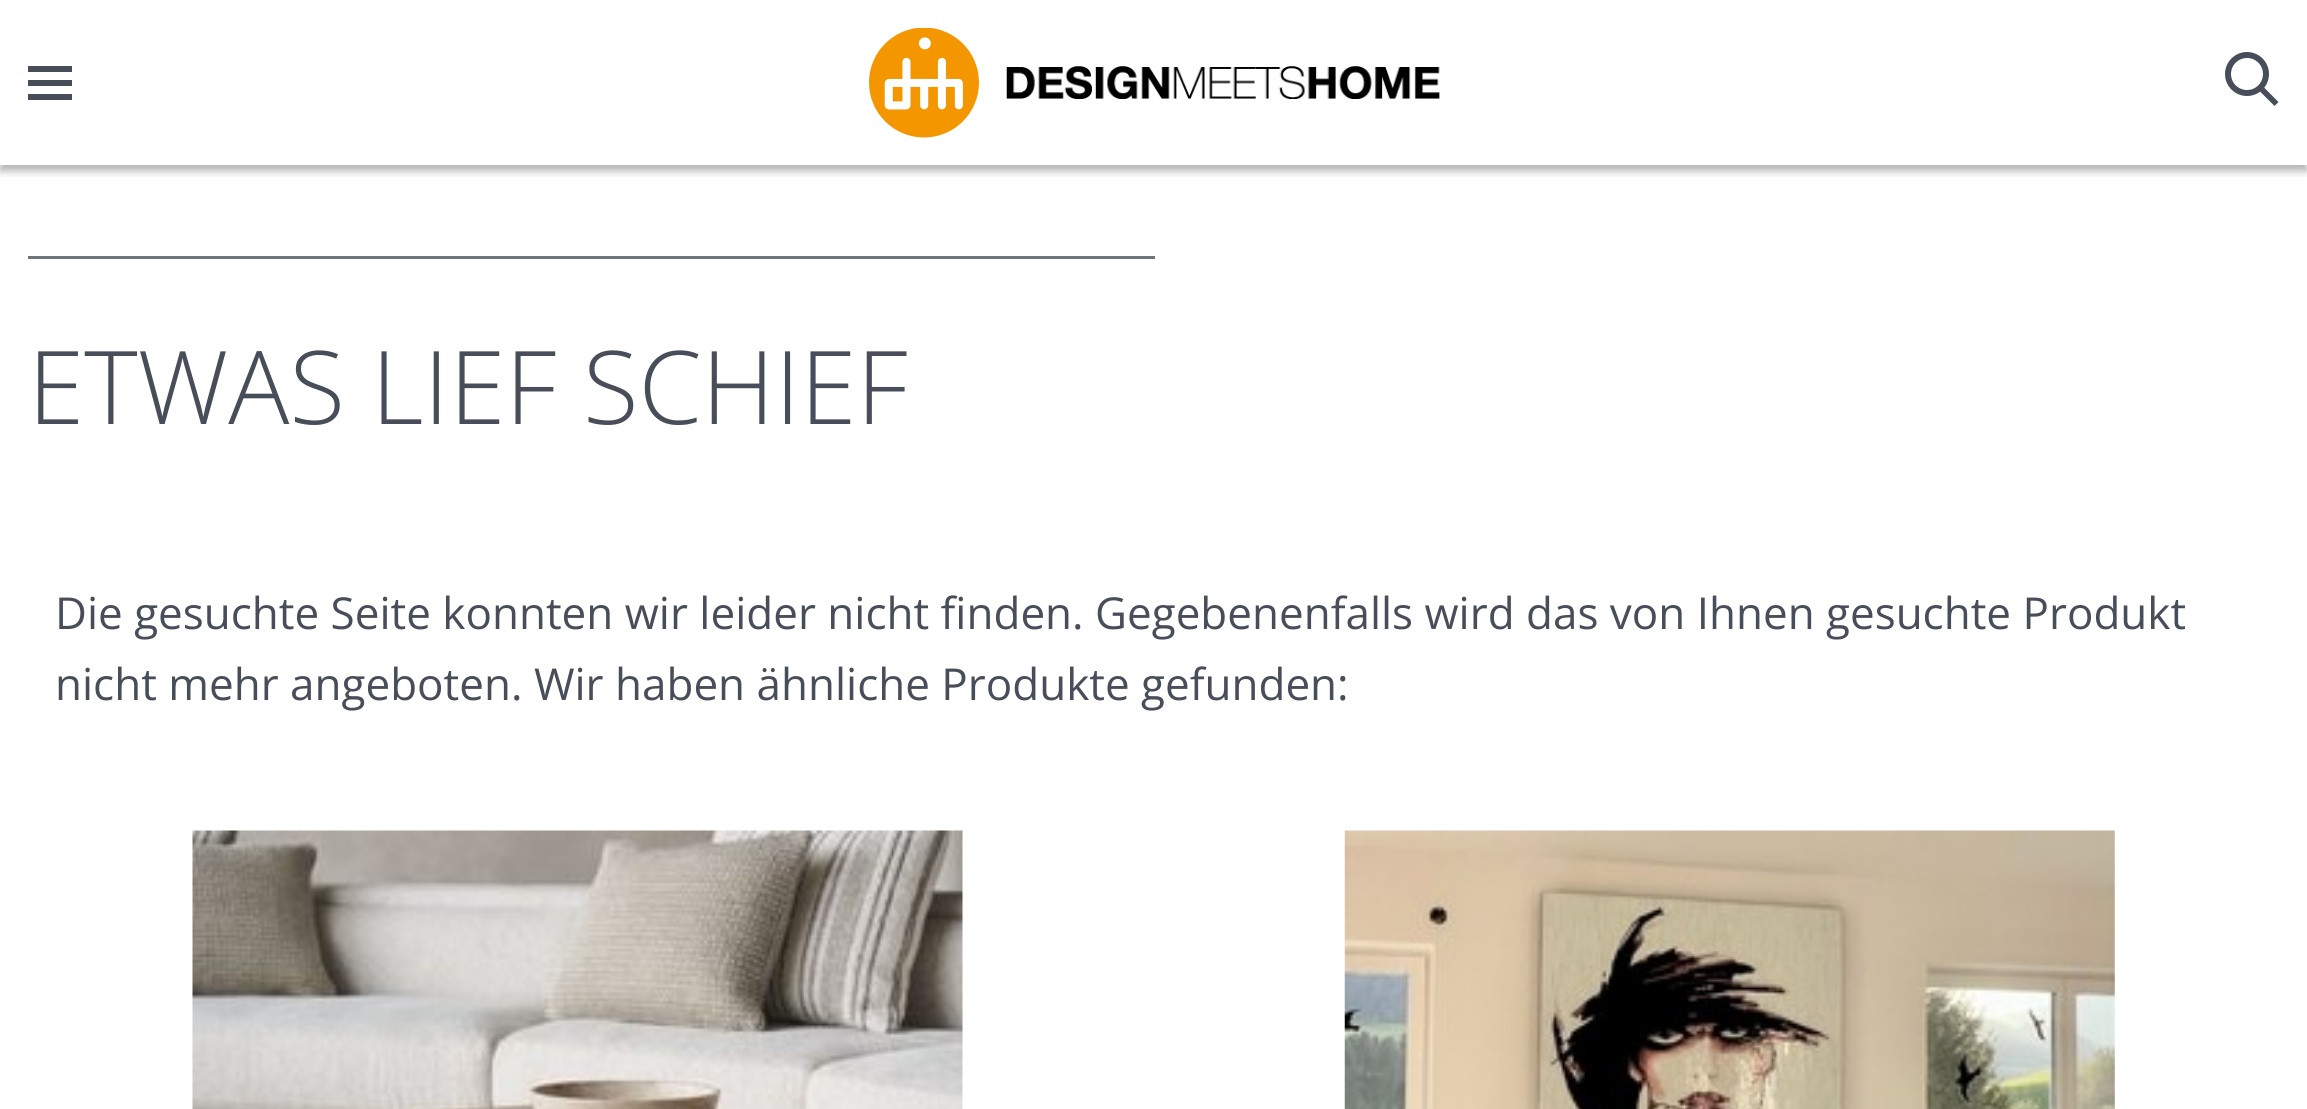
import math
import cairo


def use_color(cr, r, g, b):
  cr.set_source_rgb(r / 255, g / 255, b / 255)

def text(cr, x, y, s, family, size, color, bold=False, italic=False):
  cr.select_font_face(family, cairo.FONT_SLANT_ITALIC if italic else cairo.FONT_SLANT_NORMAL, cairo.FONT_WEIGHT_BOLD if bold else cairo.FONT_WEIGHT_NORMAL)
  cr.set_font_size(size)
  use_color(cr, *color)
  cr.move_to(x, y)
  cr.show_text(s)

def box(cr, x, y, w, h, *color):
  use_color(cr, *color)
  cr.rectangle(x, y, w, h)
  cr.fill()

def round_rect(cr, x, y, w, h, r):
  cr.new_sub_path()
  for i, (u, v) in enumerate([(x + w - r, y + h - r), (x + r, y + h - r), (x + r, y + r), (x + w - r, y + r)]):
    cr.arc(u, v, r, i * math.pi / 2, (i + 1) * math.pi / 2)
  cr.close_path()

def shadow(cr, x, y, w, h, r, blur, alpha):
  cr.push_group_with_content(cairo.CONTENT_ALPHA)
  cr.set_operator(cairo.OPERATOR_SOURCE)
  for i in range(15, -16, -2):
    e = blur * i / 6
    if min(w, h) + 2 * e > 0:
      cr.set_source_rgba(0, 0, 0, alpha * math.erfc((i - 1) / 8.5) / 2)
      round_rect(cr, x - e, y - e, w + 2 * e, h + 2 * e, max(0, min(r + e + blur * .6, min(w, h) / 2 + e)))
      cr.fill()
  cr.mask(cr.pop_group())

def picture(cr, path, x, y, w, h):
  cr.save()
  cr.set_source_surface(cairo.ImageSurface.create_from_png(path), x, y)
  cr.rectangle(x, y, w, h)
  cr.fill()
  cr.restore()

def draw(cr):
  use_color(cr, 255, 255, 255)
  cr.paint()
  cr.save()
  cr.rectangle(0, 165, 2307, 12)
  cr.clip()
  use_color(cr, 0, 0, 0)
  shadow(cr, 0, 6, 2307, 165, 0, 4, 0.3)
  cr.restore()
  box(cr, 28, 80, 44, 6, 72, 77, 90)
  box(cr, 28, 66, 44, 6, 72, 77, 90)
  box(cr, 28, 94, 44, 6, 72, 77, 90)
  picture(cr, "img_01.png", 869, 28, 110, 110)
  picture(cr, "img_02.png", 1006, 66, 434, 33)
  cr.arc(2247, 74, 19, 0, 2 * math.pi)
  cr.set_line_width(6)
  cr.stroke()
  cr.new_path()
  cr.move_to(2263, 86.5)
  cr.line_to(2278.5, 102)
  cr.line_to(2274.5, 106)
  cr.line_to(2259, 90.5)
  cr.close_path()
  cr.fill()
  box(cr, 28, 256, 1127, 3, 111, 117, 127)
  picture(cr, "img_03.png", 192, 830, 771, 279)
  picture(cr, "img_04.png", 1344, 830, 771, 279)
  text(cr, 28, 424, "ETWAS LIEF SCHIEF", "Open Sans Light", 101.75, (72, 77, 90))
  text(cr, 55, 629, "Die gesuchte Seite konnten wir leider nicht finden. Gegebenenfalls wird das von Ihnen gesuchte Produkt", "Open Sans", 44, (72, 77, 90))
  text(cr, 55, 700, "nicht mehr angeboten. Wir haben ähnliche Produkte gefunden:", "Open Sans", 44, (72, 77, 90))


surface = cairo.ImageSurface(cairo.FORMAT_RGB24, 2307, 1109)
cr = cairo.Context(surface)
options = cairo.FontOptions()
options.set_hint_metrics(cairo.HINT_METRICS_OFF)
options.set_hint_style(cairo.HINT_STYLE_NONE)
cr.set_font_options(options)
cr.set_miter_limit(4)
draw(cr)
surface.write_to_png("out.png")
